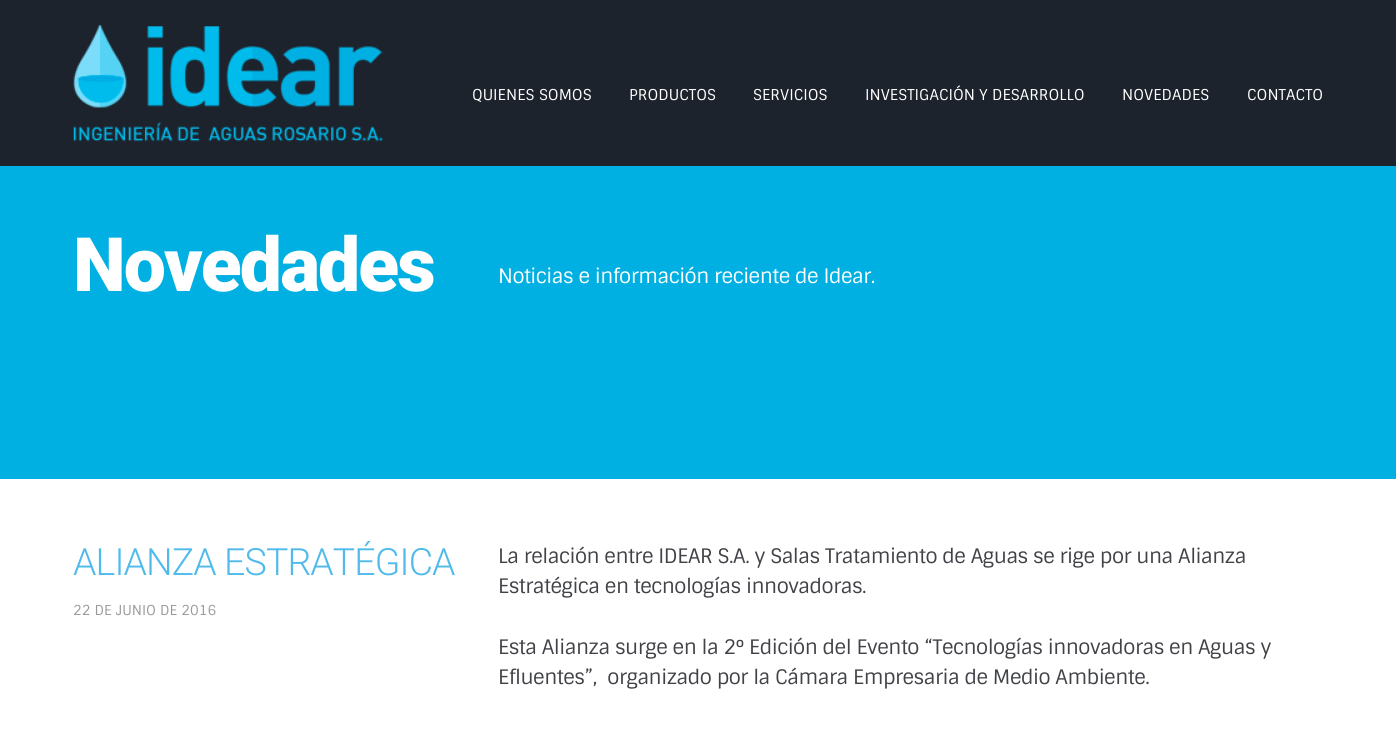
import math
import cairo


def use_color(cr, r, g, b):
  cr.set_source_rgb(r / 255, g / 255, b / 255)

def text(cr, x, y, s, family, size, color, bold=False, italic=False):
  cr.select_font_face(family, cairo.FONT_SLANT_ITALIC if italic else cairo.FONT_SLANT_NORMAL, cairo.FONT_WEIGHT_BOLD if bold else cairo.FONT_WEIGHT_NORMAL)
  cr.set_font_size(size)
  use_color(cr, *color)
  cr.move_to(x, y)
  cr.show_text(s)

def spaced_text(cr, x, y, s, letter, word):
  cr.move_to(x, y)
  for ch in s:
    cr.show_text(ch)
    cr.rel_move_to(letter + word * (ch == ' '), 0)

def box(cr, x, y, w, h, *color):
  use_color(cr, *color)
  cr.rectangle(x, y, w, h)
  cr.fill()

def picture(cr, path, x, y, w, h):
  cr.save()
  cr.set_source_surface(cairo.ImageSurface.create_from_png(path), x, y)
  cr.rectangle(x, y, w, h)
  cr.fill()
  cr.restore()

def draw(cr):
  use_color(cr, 29, 35, 45)
  cr.paint()
  picture(cr, "img_01.png", 73, 25, 310, 117)
  box(cr, 0, 479, 1396, 256, 255, 255, 255)
  box(cr, 0, 166, 1396, 313, 0, 176, 226)
  text(cr, 472, 100, "QUIENES SOMOS", "Sintony", 15, (255, 255, 255))
  text(cr, 629, 100, "PRODUCTOS", "Sintony", 15, (255, 255, 255))
  text(cr, 753, 100, "SERVICIOS", "Sintony", 15, (255, 255, 255))
  text(cr, 865, 100, "INVESTIGACIÓN Y DESARROLLO", "Sintony", 15, (255, 255, 255))
  text(cr, 1122, 100, "NOVEDADES", "Sintony", 15, (255, 255, 255))
  text(cr, 1247, 100, "CONTACTO", "Sintony", 15, (255, 255, 255))
  cr.select_font_face("Roboto Black")
  cr.set_font_size(75)
  spaced_text(cr, 73, 291, "Novedades", -1.9, 0)
  cr.select_font_face("Sintony")
  cr.set_font_size(20)
  spaced_text(cr, 498, 283, "Noticias e información reciente de Idear.", -0.5, 0)
  cr.select_font_face("Roboto Light")
  cr.set_font_size(37.5)
  use_color(cr, 80, 187, 235)
  spaced_text(cr, 73, 575, "ALIANZA ESTRATÉGICA", -0.9, 0)
  text(cr, 73, 615, "22 DE JUNIO DE 2016", "Sintony", 13.75, (153, 153, 153))
  cr.set_font_size(20)
  use_color(cr, 64, 66, 71)
  spaced_text(cr, 498, 563, "La relación entre IDEAR S.A. y Salas Tratamiento de Aguas se rige por una Alianza", -0.5, 0)
  spaced_text(cr, 498, 593, "Estratégica en tecnologías innovadoras.", -0.5, 0)
  spaced_text(cr, 498, 654, "Esta Alianza surge en la 2° Edición del Evento “Tecnologías innovadoras en Aguas y", -0.5, 0)
  spaced_text(cr, 498, 684, "Efluentes”,  organizado por la Cámara Empresaria de Medio Ambiente.", -0.5, 0)


surface = cairo.ImageSurface(cairo.FORMAT_RGB24, 1396, 735)
cr = cairo.Context(surface)
options = cairo.FontOptions()
options.set_hint_metrics(cairo.HINT_METRICS_OFF)
options.set_hint_style(cairo.HINT_STYLE_NONE)
cr.set_font_options(options)
cr.set_miter_limit(4)
draw(cr)
surface.write_to_png("out.png")
